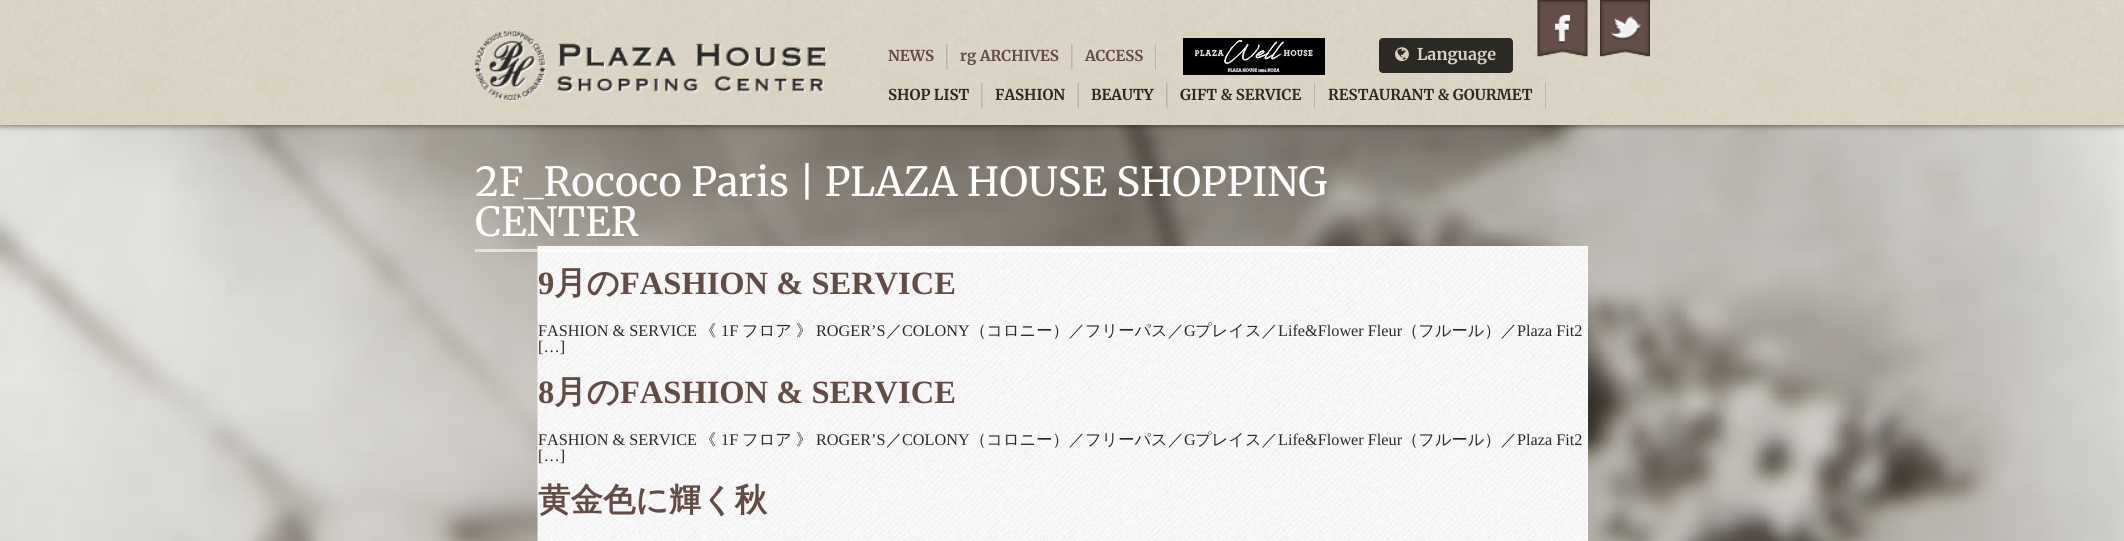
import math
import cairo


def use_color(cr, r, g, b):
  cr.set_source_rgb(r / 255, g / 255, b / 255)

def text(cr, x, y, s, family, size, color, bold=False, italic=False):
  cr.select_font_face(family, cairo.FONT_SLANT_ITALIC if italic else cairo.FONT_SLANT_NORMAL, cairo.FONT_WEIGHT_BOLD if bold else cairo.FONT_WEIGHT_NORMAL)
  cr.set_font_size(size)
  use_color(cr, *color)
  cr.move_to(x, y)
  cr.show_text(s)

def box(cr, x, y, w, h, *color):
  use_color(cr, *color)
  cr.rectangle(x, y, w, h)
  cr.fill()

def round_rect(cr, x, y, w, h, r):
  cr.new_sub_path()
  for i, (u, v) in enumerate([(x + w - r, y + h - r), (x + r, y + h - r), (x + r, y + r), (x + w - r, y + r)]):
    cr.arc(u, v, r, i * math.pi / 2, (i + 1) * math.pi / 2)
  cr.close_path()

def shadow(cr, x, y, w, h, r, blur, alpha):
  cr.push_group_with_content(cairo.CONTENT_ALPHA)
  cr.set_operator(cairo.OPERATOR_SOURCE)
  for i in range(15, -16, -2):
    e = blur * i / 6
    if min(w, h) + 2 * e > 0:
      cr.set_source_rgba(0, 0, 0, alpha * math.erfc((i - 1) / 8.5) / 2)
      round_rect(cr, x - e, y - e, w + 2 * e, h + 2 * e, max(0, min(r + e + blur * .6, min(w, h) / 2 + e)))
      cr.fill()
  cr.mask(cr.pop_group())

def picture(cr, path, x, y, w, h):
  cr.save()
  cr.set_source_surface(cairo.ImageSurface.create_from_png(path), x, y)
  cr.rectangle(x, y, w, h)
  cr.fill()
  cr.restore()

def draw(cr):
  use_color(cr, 255, 255, 255)
  cr.paint()
  picture(cr, "img_01.png", 0, 125, 2124, 416)
  use_color(cr, 0, 0, 0)
  shadow(cr, 0, 1, 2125, 125, 0, 3, 0.5)
  picture(cr, "img_02.png", 0, 0, 2124, 125)
  picture(cr, "img_03.png", 475, 30, 353, 72)
  use_color(cr, 188, 177, 167)
  cr.new_path()
  cr.move_to(947.5, 44)
  cr.line_to(947.5, 70)
  cr.line_to(946, 69)
  cr.line_to(946, 44)
  cr.close_path()
  cr.fill()
  cr.new_path()
  cr.move_to(1072.5, 44)
  cr.line_to(1072.5, 70)
  cr.line_to(1071, 69)
  cr.line_to(1071, 44)
  cr.close_path()
  cr.fill()
  cr.new_path()
  cr.move_to(1156, 44)
  cr.line_to(1156, 70)
  cr.line_to(1155, 69)
  cr.line_to(1155, 44)
  cr.close_path()
  cr.fill()
  box(cr, 1183, 38, 142, 37, 0, 0, 0)
  picture(cr, "img_04.png", 1195, 40, 118, 33)
  use_color(cr, 44, 41, 37)
  round_rect(cr, 1379, 38, 134, 35, 4)
  cr.fill()
  picture(cr, "img_05.png", 1395, 47, 14, 15)
  picture(cr, "img_06.png", 1537, 0, 51, 57)
  picture(cr, "img_07.png", 1600, 0, 50, 57)
  use_color(cr, 188, 177, 167)
  cr.new_path()
  cr.move_to(982.5, 82.5)
  cr.line_to(982.5, 109)
  cr.line_to(981, 107.5)
  cr.line_to(981, 82.5)
  cr.close_path()
  cr.fill()
  cr.new_path()
  cr.move_to(1079, 82.5)
  cr.line_to(1079, 109)
  cr.line_to(1077.5, 107.5)
  cr.line_to(1077.5, 82.5)
  cr.close_path()
  cr.fill()
  cr.new_path()
  cr.move_to(1167.5, 82.5)
  cr.line_to(1167.5, 109)
  cr.line_to(1166, 107.5)
  cr.line_to(1166, 82.5)
  cr.close_path()
  cr.fill()
  cr.new_path()
  cr.move_to(1315, 82.5)
  cr.line_to(1315, 109)
  cr.line_to(1314, 107.5)
  cr.line_to(1314, 82.5)
  cr.close_path()
  cr.fill()
  cr.new_path()
  cr.move_to(1546, 82.5)
  cr.line_to(1546, 109)
  cr.line_to(1545, 107.5)
  cr.line_to(1545, 82.5)
  cr.close_path()
  cr.fill()
  box(cr, 538, 246, 1050, 295, 255, 255, 255)
  picture(cr, "img_08.png", 537, 246, 1051, 295)
  cr.set_source_rgba(1, 1, 1, 0.6)
  cr.rectangle(475, 249, 863, 3)
  cr.fill()
  text(cr, 888, 61, "NEWS", "Merriweather", 15, (100, 76, 70), bold=True)
  text(cr, 960, 61, "rg ARCHIVES", "Merriweather", 15, (100, 76, 70), bold=True)
  text(cr, 1085, 61, "ACCESS", "Merriweather", 15, (100, 76, 70), bold=True)
  text(cr, 1417, 60, "Language", "Merriweather", 16.25, (218, 210, 193), bold=True)
  text(cr, 888, 100, "SHOP LIST", "Merriweather", 15, (44, 42, 37), bold=True)
  text(cr, 995, 100, "FASHION", "Merriweather", 15, (44, 42, 37), bold=True)
  text(cr, 1091, 100, "BEAUTY", "Merriweather", 15, (44, 42, 37), bold=True)
  text(cr, 1180, 100, "GIFT & SERVICE", "Merriweather", 15, (44, 42, 37), bold=True)
  text(cr, 1328, 100, "RESTAURANT & GOURMET", "Merriweather", 15, (44, 42, 37), bold=True)
  cr.save()
  cr.rectangle(475, 163, 863, 86)
  cr.clip()
  text(cr, 475, 196, "2F_Rococo Paris | PLAZA HOUSE SHOPPING", "Merriweather", 40, (255, 255, 255))
  cr.restore()
  text(cr, 475, 236, "CENTER", "Merriweather", 40, (255, 255, 255))
  text(cr, 538, 294, "9", "Liberation Serif", 32.5, (100, 76, 70), bold=True)
  text(cr, 554, 294, "月の", "WenQuanYi Zen Hei", 32.5, (100, 76, 70), bold=True)
  text(cr, 620, 294, "FASHION & SERVICE", "Liberation Serif", 32.5, (100, 76, 70), bold=True)
  text(cr, 538, 336, "FASHION & SERVICE", "Liberation Serif", 16.25, (44, 42, 37))
  text(cr, 700, 336, "《", "WenQuanYi Zen Hei Medium", 16.25, (44, 42, 37))
  text(cr, 721, 336, "1F", "Liberation Serif", 16.25, (44, 42, 37))
  text(cr, 742, 336, "フロア", "WenQuanYi Zen Hei Medium", 16.25, (44, 42, 37))
  text(cr, 796, 336, "》", "WenQuanYi Zen Hei Medium", 16.25, (44, 42, 37))
  text(cr, 816, 336, "ROGER’S", "Liberation Serif", 16.25, (44, 42, 37))
  text(cr, 886, 336, "／", "WenQuanYi Zen Hei Medium", 16.25, (44, 42, 37))
  text(cr, 902, 336, "COLONY", "Liberation Serif", 16.25, (44, 42, 37))
  text(cr, 970, 336, "（コロニー）／フリーパス／", "WenQuanYi Zen Hei Medium", 16.25, (44, 42, 37))
  text(cr, 1184, 336, "G", "Liberation Serif", 16.25, (44, 42, 37))
  text(cr, 1195, 336, "プレイス／", "WenQuanYi Zen Hei Medium", 16.25, (44, 42, 37))
  text(cr, 1278, 336, "Life&Flower Fleur", "Liberation Serif", 16.25, (44, 42, 37))
  text(cr, 1402, 336, "（フルール）／", "WenQuanYi Zen Hei Medium", 16.25, (44, 42, 37))
  text(cr, 1517, 336, "Plaza Fit2", "Liberation Serif", 16.25, (44, 42, 37))
  text(cr, 538, 352, "[…]", "Liberation Serif", 16.25, (44, 42, 37))
  text(cr, 538, 403, "8", "Liberation Serif", 32.5, (100, 76, 70), bold=True)
  text(cr, 554, 403, "月の", "WenQuanYi Zen Hei", 32.5, (100, 76, 70), bold=True)
  text(cr, 620, 403, "FASHION & SERVICE", "Liberation Serif", 32.5, (100, 76, 70), bold=True)
  text(cr, 538, 445, "FASHION & SERVICE", "Liberation Serif", 16.25, (44, 42, 37))
  text(cr, 700, 445, "《", "WenQuanYi Zen Hei Medium", 16.25, (44, 42, 37))
  text(cr, 721, 445, "1F", "Liberation Serif", 16.25, (44, 42, 37))
  text(cr, 742, 445, "フロア", "WenQuanYi Zen Hei Medium", 16.25, (44, 42, 37))
  text(cr, 796, 445, "》", "WenQuanYi Zen Hei Medium", 16.25, (44, 42, 37))
  text(cr, 816, 445, "ROGER’S", "Liberation Serif", 16.25, (44, 42, 37))
  text(cr, 886, 445, "／", "WenQuanYi Zen Hei Medium", 16.25, (44, 42, 37))
  text(cr, 902, 445, "COLONY", "Liberation Serif", 16.25, (44, 42, 37))
  text(cr, 970, 445, "（コロニー）／フリーパス／", "WenQuanYi Zen Hei Medium", 16.25, (44, 42, 37))
  text(cr, 1184, 445, "G", "Liberation Serif", 16.25, (44, 42, 37))
  text(cr, 1195, 445, "プレイス／", "WenQuanYi Zen Hei Medium", 16.25, (44, 42, 37))
  text(cr, 1278, 445, "Life&Flower Fleur", "Liberation Serif", 16.25, (44, 42, 37))
  text(cr, 1402, 445, "（フルール）／", "WenQuanYi Zen Hei Medium", 16.25, (44, 42, 37))
  text(cr, 1517, 445, "Plaza Fit2", "Liberation Serif", 16.25, (44, 42, 37))
  text(cr, 538, 461, "[…]", "Liberation Serif", 16.25, (44, 42, 37))
  text(cr, 538, 511, "黄金色に輝く秋", "WenQuanYi Zen Hei", 32.5, (100, 76, 70), bold=True)


surface = cairo.ImageSurface(cairo.FORMAT_RGB24, 2124, 541)
cr = cairo.Context(surface)
options = cairo.FontOptions()
options.set_hint_metrics(cairo.HINT_METRICS_OFF)
options.set_hint_style(cairo.HINT_STYLE_NONE)
cr.set_font_options(options)
cr.set_miter_limit(4)
draw(cr)
surface.write_to_png("out.png")
